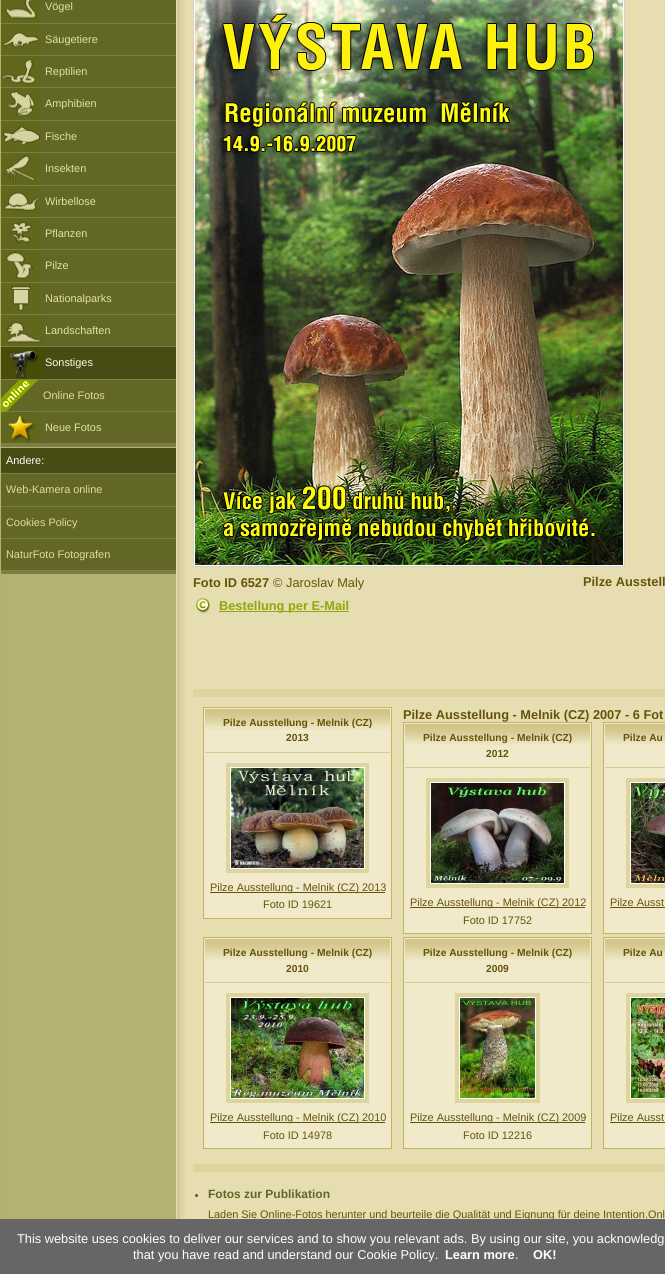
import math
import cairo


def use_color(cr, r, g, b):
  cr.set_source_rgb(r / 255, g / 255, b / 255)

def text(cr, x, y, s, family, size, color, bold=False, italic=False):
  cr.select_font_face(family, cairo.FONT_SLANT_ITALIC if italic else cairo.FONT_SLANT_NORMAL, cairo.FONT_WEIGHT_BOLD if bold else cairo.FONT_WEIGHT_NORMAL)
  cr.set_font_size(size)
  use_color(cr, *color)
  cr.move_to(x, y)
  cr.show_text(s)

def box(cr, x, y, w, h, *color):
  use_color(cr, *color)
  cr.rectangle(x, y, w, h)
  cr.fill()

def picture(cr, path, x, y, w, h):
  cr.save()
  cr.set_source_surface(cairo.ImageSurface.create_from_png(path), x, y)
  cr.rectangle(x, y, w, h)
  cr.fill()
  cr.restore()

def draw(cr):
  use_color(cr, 255, 255, 255)
  cr.paint()
  picture(cr, "img_01.png", 1, 447, 175, 772)
  box(cr, 0, 0, 1, 1219, 181, 176, 108)
  box(cr, 1, 443, 175, 4, 123, 127, 68)
  box(cr, 1, 23, 175, 1, 123, 127, 68)
  box(cr, 1, 0, 175, 23, 98, 103, 39)
  picture(cr, "img_02.png", 1, 0, 40, 23)
  box(cr, 1, 55, 175, 1, 123, 127, 68)
  box(cr, 1, 24, 175, 31, 98, 103, 39)
  picture(cr, "img_03.png", 1, 24, 40, 31)
  box(cr, 1, 87, 175, 1, 123, 127, 68)
  box(cr, 1, 56, 175, 31, 98, 103, 39)
  picture(cr, "img_04.png", 1, 56, 40, 31)
  box(cr, 1, 120, 175, 1, 123, 127, 68)
  box(cr, 1, 88, 175, 32, 98, 103, 39)
  picture(cr, "img_05.png", 1, 88, 40, 32)
  box(cr, 1, 152, 175, 1, 123, 127, 68)
  box(cr, 1, 121, 175, 31, 98, 103, 39)
  picture(cr, "img_06.png", 1, 121, 40, 31)
  box(cr, 1, 185, 175, 1, 123, 127, 68)
  box(cr, 1, 153, 175, 32, 98, 103, 39)
  picture(cr, "img_07.png", 1, 153, 40, 32)
  box(cr, 1, 217, 175, 1, 123, 127, 68)
  box(cr, 1, 186, 175, 31, 98, 103, 39)
  picture(cr, "img_08.png", 1, 186, 40, 31)
  box(cr, 1, 249, 175, 1, 123, 127, 68)
  box(cr, 1, 218, 175, 31, 98, 103, 39)
  picture(cr, "img_09.png", 1, 218, 40, 31)
  box(cr, 1, 282, 175, 1, 123, 127, 68)
  box(cr, 1, 250, 175, 32, 98, 103, 39)
  picture(cr, "img_10.png", 1, 250, 40, 32)
  box(cr, 1, 314, 175, 1, 123, 127, 68)
  box(cr, 1, 283, 175, 31, 98, 103, 39)
  picture(cr, "img_11.png", 1, 283, 40, 31)
  box(cr, 1, 346, 175, 1, 123, 127, 68)
  box(cr, 1, 315, 175, 31, 98, 103, 39)
  picture(cr, "img_12.png", 1, 315, 44, 31)
  box(cr, 1, 379, 175, 1, 123, 127, 68)
  box(cr, 1, 347, 175, 32, 71, 76, 20)
  picture(cr, "img_13.png", 1, 347, 44, 32)
  box(cr, 1, 380, 175, 31, 98, 103, 39)
  box(cr, 1, 411, 175, 1, 123, 127, 68)
  picture(cr, "img_14.png", 1, 380, 37, 32)
  box(cr, 1, 412, 175, 31, 98, 103, 39)
  picture(cr, "img_15.png", 1, 412, 40, 31)
  box(cr, 176, 0, 489, 1219, 230, 222, 176)
  picture(cr, "img_16.png", 177, 0, 8, 1219)
  box(cr, 1, 448, 175, 25, 71, 76, 20)
  box(cr, 1, 473, 175, 1, 123, 127, 68)
  box(cr, 1, 570, 175, 4, 123, 127, 68)
  box(cr, 1, 474, 175, 32, 98, 103, 39)
  box(cr, 1, 506, 175, 1, 123, 127, 68)
  box(cr, 1, 507, 175, 31, 98, 103, 39)
  box(cr, 1, 538, 175, 1, 123, 127, 68)
  box(cr, 1, 539, 175, 31, 98, 103, 39)
  use_color(cr, 255, 255, 255)
  cr.rectangle(193.5, -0.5, 431, 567)
  cr.fill_preserve()
  use_color(cr, 208, 208, 208)
  cr.set_line_width(1)
  cr.stroke()
  picture(cr, "img_17.png", 195, 0, 428, 565)
  picture(cr, "img_18.png", 196, 598, 14, 16)
  box(cr, 219, 611, 130, 1, 146, 166, 14)
  box(cr, 193, 689, 472, 8, 222, 212, 158)
  use_color(cr, 240, 234, 202)
  cr.rectangle(203.5, 707.5, 188, 211)
  cr.fill_preserve()
  use_color(cr, 194, 180, 99)
  cr.stroke()
  picture(cr, "img_19.png", 205, 709, 185, 21)
  box(cr, 205, 752, 185, 1, 214, 203, 143)
  use_color(cr, 255, 255, 255)
  cr.rectangle(228, 765, 139, 106)
  cr.fill_preserve()
  use_color(cr, 222, 212, 158)
  cr.set_line_width(4)
  cr.stroke()
  picture(cr, "img_20.png", 231, 768, 133, 100)
  box(cr, 210, 892, 175, 1, 101, 83, 11)
  use_color(cr, 240, 234, 202)
  cr.rectangle(403.5, 722.5, 188, 211)
  cr.fill_preserve()
  use_color(cr, 194, 180, 99)
  cr.set_line_width(1)
  cr.stroke()
  picture(cr, "img_19.png", 405, 724, 185, 21)
  box(cr, 405, 767, 185, 1, 214, 203, 143)
  use_color(cr, 255, 255, 255)
  cr.rectangle(428, 780, 139, 106)
  cr.fill_preserve()
  use_color(cr, 222, 212, 158)
  cr.set_line_width(4)
  cr.stroke()
  picture(cr, "img_21.png", 431, 783, 133, 100)
  box(cr, 410, 907, 175, 1, 101, 83, 11)
  use_color(cr, 240, 234, 202)
  cr.rectangle(603.5, 722.5, 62, 211)
  cr.fill_preserve()
  use_color(cr, 194, 180, 99)
  cr.set_line_width(1)
  cr.stroke()
  picture(cr, "img_22.png", 605, 724, 60, 21)
  box(cr, 605, 767, 60, 1, 214, 203, 143)
  use_color(cr, 255, 255, 255)
  cr.rectangle(628, 780, 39, 106)
  cr.fill_preserve()
  use_color(cr, 222, 212, 158)
  cr.set_line_width(4)
  cr.stroke()
  picture(cr, "img_23.png", 631, 783, 34, 100)
  box(cr, 610, 907, 55, 1, 101, 83, 11)
  use_color(cr, 240, 234, 202)
  cr.rectangle(203.5, 937.5, 188, 211)
  cr.fill_preserve()
  use_color(cr, 194, 180, 99)
  cr.set_line_width(1)
  cr.stroke()
  picture(cr, "img_19.png", 205, 939, 185, 21)
  box(cr, 205, 982, 185, 1, 214, 203, 143)
  use_color(cr, 255, 255, 255)
  cr.rectangle(228, 995, 139, 106)
  cr.fill_preserve()
  use_color(cr, 222, 212, 158)
  cr.set_line_width(4)
  cr.stroke()
  picture(cr, "img_24.png", 231, 998, 133, 100)
  box(cr, 210, 1122, 175, 1, 101, 83, 11)
  use_color(cr, 240, 234, 202)
  cr.rectangle(403.5, 937.5, 188, 211)
  cr.fill_preserve()
  use_color(cr, 194, 180, 99)
  cr.set_line_width(1)
  cr.stroke()
  picture(cr, "img_19.png", 405, 939, 185, 21)
  box(cr, 405, 982, 185, 1, 214, 203, 143)
  use_color(cr, 255, 255, 255)
  cr.rectangle(457, 995, 81, 106)
  cr.fill_preserve()
  use_color(cr, 222, 212, 158)
  cr.set_line_width(4)
  cr.stroke()
  picture(cr, "img_25.png", 460, 998, 75, 100)
  box(cr, 410, 1122, 175, 1, 101, 83, 11)
  use_color(cr, 240, 234, 202)
  cr.rectangle(603.5, 937.5, 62, 211)
  cr.fill_preserve()
  use_color(cr, 194, 180, 99)
  cr.set_line_width(1)
  cr.stroke()
  picture(cr, "img_22.png", 605, 939, 60, 21)
  box(cr, 605, 982, 60, 1, 214, 203, 143)
  use_color(cr, 255, 255, 255)
  cr.rectangle(628, 995, 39, 106)
  cr.fill_preserve()
  use_color(cr, 222, 212, 158)
  cr.set_line_width(4)
  cr.stroke()
  picture(cr, "img_26.png", 631, 998, 34, 100)
  box(cr, 610, 1122, 55, 1, 101, 83, 11)
  box(cr, 193, 1164, 472, 8, 222, 212, 158)
  use_color(cr, 101, 83, 11)
  cr.arc(196.5, 1195.5, 1.5, 0, 2 * math.pi)
  cr.fill()
  text(cr, 45, 10, "Vögel", "Liberation Sans", 10.9, (224, 226, 160))
  text(cr, 45, 43, "Säugetiere", "Liberation Sans", 10.9, (224, 226, 160))
  text(cr, 45, 75, "Reptilien", "Liberation Sans", 10.9, (224, 226, 160))
  text(cr, 45, 107, "Amphibien", "Liberation Sans", 10.9, (224, 226, 160))
  text(cr, 45, 140, "Fische", "Liberation Sans", 10.9, (224, 226, 160))
  text(cr, 45, 172, "Insekten", "Liberation Sans", 10.9, (224, 226, 160))
  text(cr, 45, 205, "Wirbellose", "Liberation Sans", 10.9, (224, 226, 160))
  text(cr, 45, 237, "Pflanzen", "Liberation Sans", 10.9, (224, 226, 160))
  text(cr, 45, 269, "Pilze", "Liberation Sans", 10.9, (224, 226, 160))
  text(cr, 45, 302, "Nationalparks", "Liberation Sans", 10.9, (224, 226, 160))
  text(cr, 45, 334, "Landschaften", "Liberation Sans", 10.9, (224, 226, 160))
  text(cr, 45, 366, "Sonstiges", "Liberation Sans", 10.9, (254, 249, 223))
  text(cr, 43, 399, "Online Fotos", "Liberation Sans", 10.9, (226, 217, 160))
  text(cr, 45, 431, "Neue Fotos", "Liberation Sans", 10.9, (224, 226, 160))
  text(cr, 6, 464, "Andere:", "Liberation Sans", 10.9, (255, 255, 255))
  text(cr, 6, 493, "Web-Kamera online", "Liberation Sans", 10.9, (226, 217, 160))
  text(cr, 6, 526, "Cookies Policy", "Liberation Sans", 10.9, (226, 217, 160))
  text(cr, 6, 558, "NaturFoto Fotografen", "Liberation Sans", 10.9, (226, 217, 160))
  text(cr, 193, 587, "Foto ID 6527", "Liberation Sans", 12.8, (101, 83, 11), bold=True)
  text(cr, 273, 587, "© Jaroslav Maly", "Liberation Sans", 12.8, (101, 83, 11))
  text(cr, 219, 610, "Bestellung per E-Mail", "Liberation Sans", 12.8, (146, 166, 14), bold=True)
  text(cr, 583, 586, "Pilze Ausstell", "Liberation Sans", 12.8, (101, 83, 11), bold=True)
  text(cr, 403, 719, "Pilze Ausstellung - Melnik (CZ) 2007 - 6 Fot", "Liberation Sans", 12.8, (101, 83, 11), bold=True)
  text(cr, 223, 726, "Pilze Ausstellung - Melnik (CZ)", "Liberation Sans", 10.25, (101, 83, 11), bold=True)
  text(cr, 286, 741, "2013", "Liberation Sans", 10.25, (101, 83, 11), bold=True)
  text(cr, 210, 891, "Pilze Ausstellung - Melnik (CZ) 2013", "Liberation Sans", 10.9, (101, 83, 11))
  text(cr, 263, 908, "Foto ID 19621", "Liberation Sans", 10.9, (101, 83, 11))
  text(cr, 423, 741, "Pilze Ausstellung - Melnik (CZ)", "Liberation Sans", 10.25, (101, 83, 11), bold=True)
  text(cr, 486, 757, "2012", "Liberation Sans", 10.25, (101, 83, 11), bold=True)
  text(cr, 410, 906, "Pilze Ausstellung - Melnik (CZ) 2012", "Liberation Sans", 10.9, (101, 83, 11))
  text(cr, 463, 924, "Foto ID 17752", "Liberation Sans", 10.9, (101, 83, 11))
  text(cr, 623, 741, "Pilze Au", "Liberation Sans", 10.25, (101, 83, 11), bold=True)
  text(cr, 610, 906, "Pilze Ausst", "Liberation Sans", 10.9, (101, 83, 11))
  text(cr, 223, 956, "Pilze Ausstellung - Melnik (CZ)", "Liberation Sans", 10.25, (101, 83, 11), bold=True)
  text(cr, 286, 972, "2010", "Liberation Sans", 10.25, (101, 83, 11), bold=True)
  text(cr, 210, 1121, "Pilze Ausstellung - Melnik (CZ) 2010", "Liberation Sans", 10.9, (101, 83, 11))
  text(cr, 263, 1139, "Foto ID 14978", "Liberation Sans", 10.9, (101, 83, 11))
  text(cr, 423, 956, "Pilze Ausstellung - Melnik (CZ)", "Liberation Sans", 10.25, (101, 83, 11), bold=True)
  text(cr, 486, 972, "2009", "Liberation Sans", 10.25, (101, 83, 11), bold=True)
  text(cr, 410, 1121, "Pilze Ausstellung - Melnik (CZ) 2009", "Liberation Sans", 10.9, (101, 83, 11))
  text(cr, 463, 1139, "Foto ID 12216", "Liberation Sans", 10.9, (101, 83, 11))
  text(cr, 623, 956, "Pilze Au", "Liberation Sans", 10.25, (101, 83, 11), bold=True)
  text(cr, 610, 1121, "Pilze Ausst", "Liberation Sans", 10.9, (101, 83, 11))
  text(cr, 208, 1198, "Fotos zur Publikation", "Liberation Sans", 12, (98, 103, 39), bold=True)
  text(cr, 208, 1218, "Laden Sie Online-Fotos herunter und beurteile die Qualität und Eignung für deine Intention.Onli", "Liberation Sans", 10.9, (101, 83, 11))
  box(cr, 0, 1219, 665, 55, 102, 102, 102)
  text(cr, 17, 1243, "This website uses cookies to deliver our services and to show you relevant ads. By using our site, you acknowledg", "Liberation Sans", 12.8, (255, 255, 255))
  text(cr, 133, 1259, "that you have read and understand our Cookie Policy.", "Liberation Sans", 12.8, (255, 255, 255))
  text(cr, 445, 1259, "Learn more", "Liberation Sans", 12.8, (255, 255, 255), bold=True)
  text(cr, 515, 1259, ".", "Liberation Sans", 12.8, (255, 255, 255))
  text(cr, 533, 1259, "OK!", "Liberation Sans", 12.8, (255, 255, 255), bold=True)


surface = cairo.ImageSurface(cairo.FORMAT_RGB24, 665, 1274)
cr = cairo.Context(surface)
options = cairo.FontOptions()
options.set_hint_metrics(cairo.HINT_METRICS_OFF)
options.set_hint_style(cairo.HINT_STYLE_NONE)
cr.set_font_options(options)
cr.set_miter_limit(4)
draw(cr)
surface.write_to_png("out.png")
